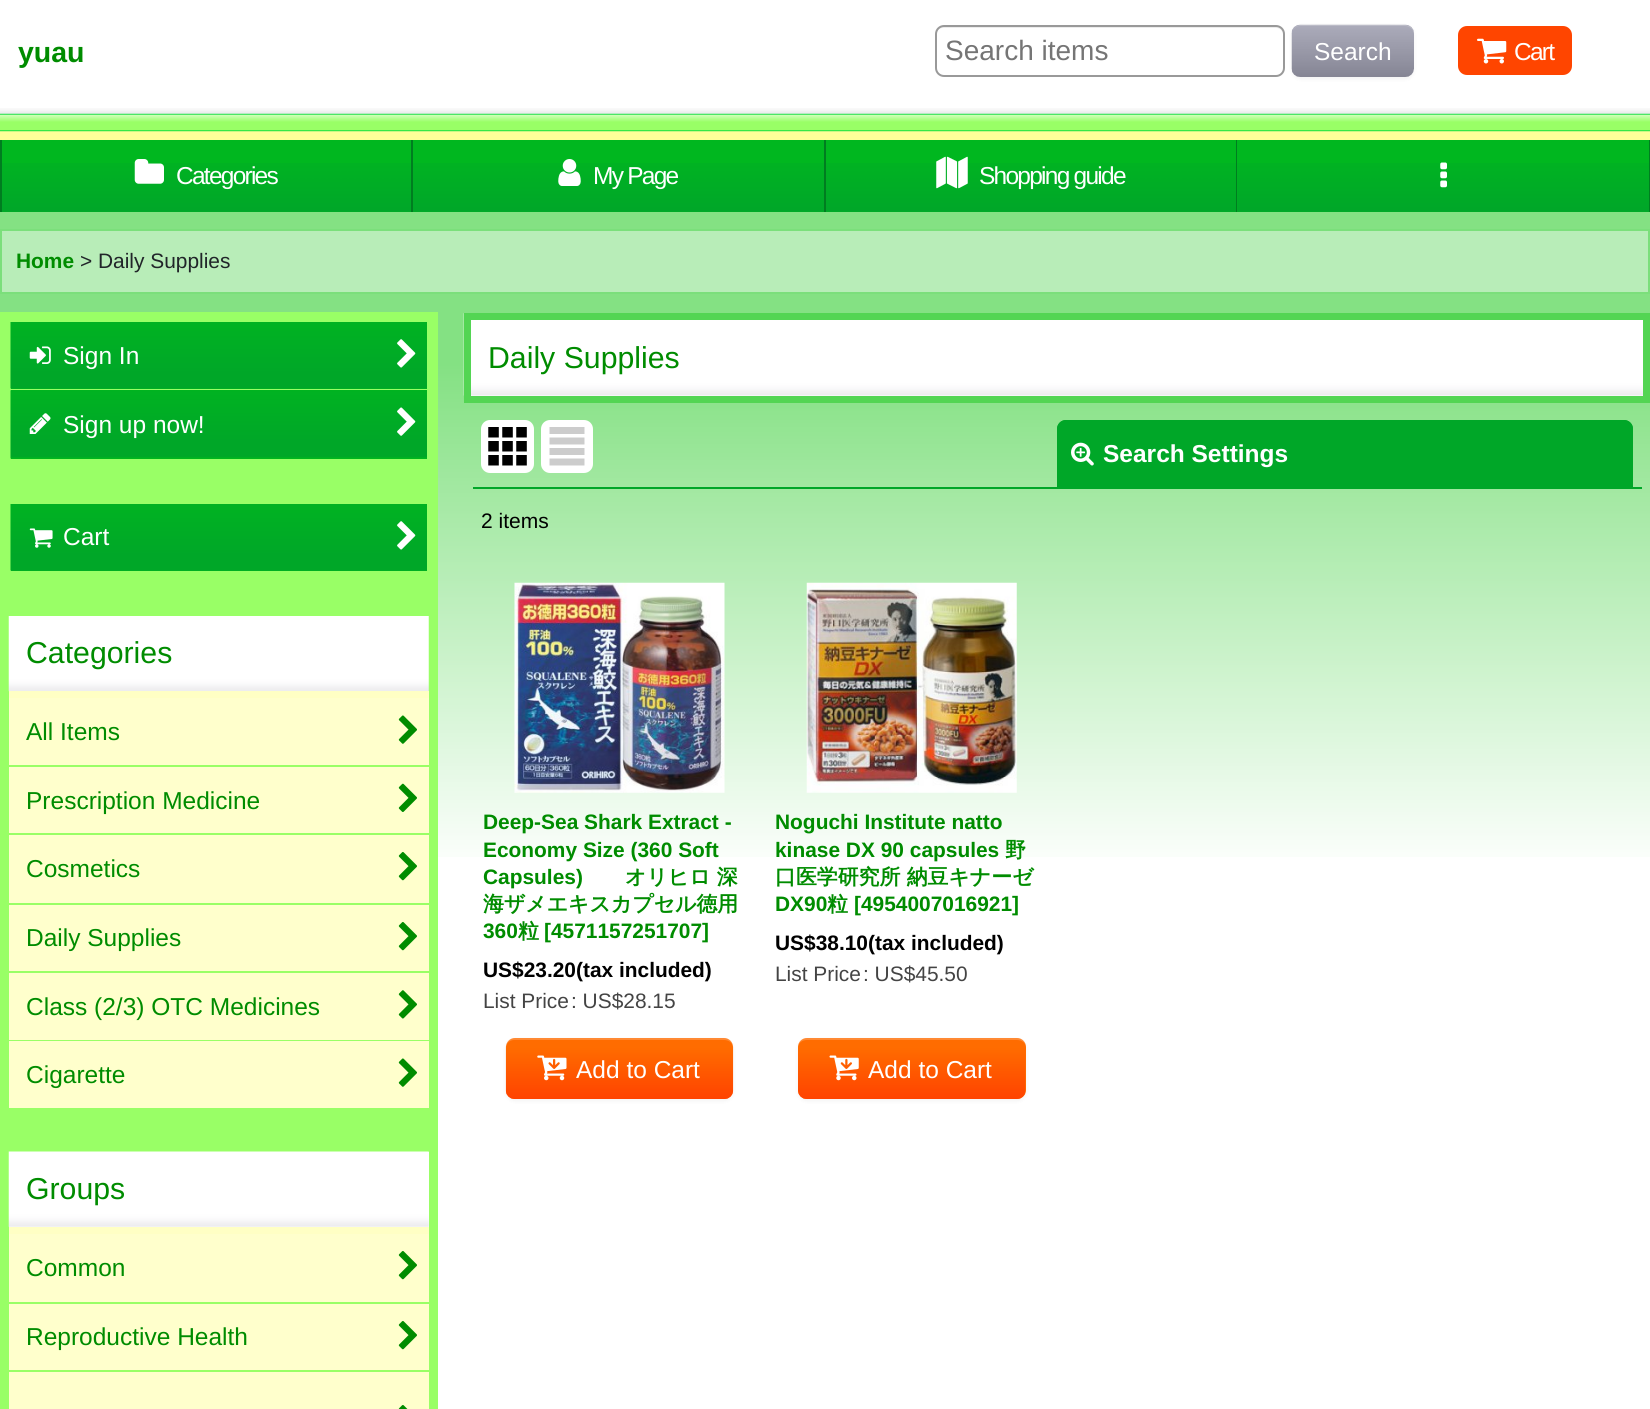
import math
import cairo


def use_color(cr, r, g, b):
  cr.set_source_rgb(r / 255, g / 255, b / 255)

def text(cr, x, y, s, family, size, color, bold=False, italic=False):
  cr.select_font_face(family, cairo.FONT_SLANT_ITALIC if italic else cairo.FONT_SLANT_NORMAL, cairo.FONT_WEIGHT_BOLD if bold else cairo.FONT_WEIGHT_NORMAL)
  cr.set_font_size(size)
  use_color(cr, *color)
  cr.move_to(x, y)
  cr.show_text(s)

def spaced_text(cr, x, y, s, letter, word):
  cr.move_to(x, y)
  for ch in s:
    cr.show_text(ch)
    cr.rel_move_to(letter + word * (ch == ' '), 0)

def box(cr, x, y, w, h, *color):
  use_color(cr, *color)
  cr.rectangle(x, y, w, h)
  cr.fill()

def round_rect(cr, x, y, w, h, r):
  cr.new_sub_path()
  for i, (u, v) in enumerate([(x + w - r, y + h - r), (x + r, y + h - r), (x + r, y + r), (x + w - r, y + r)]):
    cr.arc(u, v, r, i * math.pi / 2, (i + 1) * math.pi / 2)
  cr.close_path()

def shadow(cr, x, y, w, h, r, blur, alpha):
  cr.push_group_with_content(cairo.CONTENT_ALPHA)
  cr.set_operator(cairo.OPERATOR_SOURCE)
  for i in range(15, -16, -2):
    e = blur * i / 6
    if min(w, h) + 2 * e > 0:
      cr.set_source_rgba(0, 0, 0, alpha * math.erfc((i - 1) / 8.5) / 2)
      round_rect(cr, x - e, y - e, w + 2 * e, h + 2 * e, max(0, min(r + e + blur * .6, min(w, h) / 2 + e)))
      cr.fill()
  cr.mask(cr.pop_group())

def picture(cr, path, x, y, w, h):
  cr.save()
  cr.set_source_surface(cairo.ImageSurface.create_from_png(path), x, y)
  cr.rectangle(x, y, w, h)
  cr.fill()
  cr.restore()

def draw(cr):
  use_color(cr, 255, 255, 255)
  cr.paint()
  picture(cr, "img_01.png", 0, 212, 1650, 645)
  picture(cr, "img_02.png", 0, 108, 1650, 32)
  use_color(cr, 236, 236, 236)
  cr.new_path()
  cr.move_to(943, 28)
  cr.line_to(1276, 28)
  cr.curve_to(1280, 28, 1283, 31, 1283, 35)
  cr.curve_to(1283, 31, 1281, 26, 1276, 26)
  cr.line_to(942, 26)
  cr.curve_to(937, 27, 936, 31, 936, 35)
  cr.curve_to(936, 31, 939, 28, 943, 28)
  cr.close_path()
  cr.fill()
  round_rect(cr, 936, 26, 348, 50, 8)
  use_color(cr, 153, 153, 153)
  cr.stroke()
  use_color(cr, 0, 0, 0)
  shadow(cr, 1292, 26, 122, 53, 9, 2, 0.05)
  picture(cr, "img_03.png", 1291, 24, 123, 53)
  cr.set_source_rgba(1, 1, 1, 0.2)
  cr.new_path()
  cr.move_to(1300, 26)
  cr.line_to(1405, 26)
  cr.curve_to(1410, 26, 1414, 30, 1414, 35)
  cr.curve_to(1414, 21, 1397, 25, 1388, 25)
  cr.line_to(1318, 25)
  cr.curve_to(1309, 25, 1292, 21, 1292, 35)
  cr.curve_to(1292, 30, 1295, 26, 1300, 26)
  cr.close_path()
  cr.fill()
  use_color(cr, 255, 69, 0)
  round_rect(cr, 1458, 26, 114, 49, 9)
  cr.fill()
  picture(cr, "img_04.png", 1477, 38, 30, 26)
  box(cr, 2, 140, 409, 72, 0, 183, 31)
  picture(cr, "img_05.png", 2, 163, 409, 49)
  box(cr, 411, 140, 2, 72, 0, 125, 32)
  box(cr, 0, 140, 2, 72, 0, 125, 32)
  picture(cr, "img_06.png", 134, 159, 30, 25)
  box(cr, 413, 140, 411, 72, 0, 183, 31)
  picture(cr, "img_07.png", 413, 163, 411, 49)
  box(cr, 824, 140, 2, 72, 0, 125, 32)
  picture(cr, "img_08.png", 558, 159, 23, 27)
  box(cr, 826, 140, 410, 72, 0, 183, 31)
  picture(cr, "img_09.png", 826, 163, 410, 49)
  box(cr, 1236, 140, 1, 72, 0, 125, 32)
  picture(cr, "img_10.png", 936, 156, 32, 33)
  box(cr, 1237, 140, 412, 72, 0, 183, 31)
  picture(cr, "img_11.png", 1237, 163, 412, 49)
  box(cr, 1649, 140, 1, 72, 0, 125, 32)
  picture(cr, "img_12.png", 1440, 162, 7, 26)
  use_color(cr, 184, 237, 184)
  cr.rectangle(1, 230, 1648, 63)
  cr.fill_preserve()
  use_color(cr, 123, 223, 123)
  cr.stroke()
  box(cr, 0, 312, 438, 1097, 153, 255, 102)
  box(cr, 11, 388, 416, 1, 0, 183, 31)
  picture(cr, "img_13.png", 10, 322, 417, 67)
  picture(cr, "img_14.png", 29, 346, 22, 18)
  picture(cr, "img_15.png", 397, 339, 19, 29)
  box(cr, 11, 390, 416, 69, 0, 183, 31)
  picture(cr, "img_16.png", 10, 390, 417, 69)
  picture(cr, "img_17.png", 29, 413, 22, 21)
  picture(cr, "img_18.png", 397, 407, 19, 29)
  box(cr, 11, 570, 416, 1, 0, 183, 31)
  picture(cr, "img_13.png", 10, 504, 417, 67)
  picture(cr, "img_19.png", 29, 528, 24, 20)
  picture(cr, "img_15.png", 397, 521, 19, 29)
  picture(cr, "img_20.png", 8, 616, 421, 76)
  box(cr, 9, 691, 420, 7, 255, 255, 196)
  box(cr, 9, 698, 420, 67, 255, 255, 204)
  picture(cr, "img_21.png", 398, 715, 19, 29)
  box(cr, 9, 767, 420, 66, 255, 255, 204)
  picture(cr, "img_22.png", 398, 783, 19, 29)
  box(cr, 9, 835, 420, 68, 255, 255, 204)
  picture(cr, "img_23.png", 398, 852, 19, 29)
  box(cr, 9, 905, 420, 66, 255, 255, 204)
  picture(cr, "img_23.png", 398, 922, 19, 29)
  box(cr, 9, 973, 420, 67, 255, 255, 204)
  picture(cr, "img_24.png", 398, 990, 19, 29)
  box(cr, 9, 1041, 420, 67, 255, 255, 204)
  picture(cr, "img_21.png", 398, 1058, 19, 29)
  box(cr, 9, 1152, 420, 75, 255, 255, 255)
  picture(cr, "img_25.png", 8, 1151, 421, 76)
  box(cr, 9, 1227, 420, 7, 255, 255, 196)
  box(cr, 9, 1234, 420, 68, 255, 255, 204)
  picture(cr, "img_23.png", 398, 1251, 19, 29)
  box(cr, 9, 1304, 420, 66, 255, 255, 204)
  picture(cr, "img_23.png", 398, 1321, 19, 29)
  box(cr, 9, 1372, 420, 37, 255, 255, 204)
  picture(cr, "img_26.png", 398, 1405, 10, 4)
  box(cr, 471, 395, 1172, 1, 255, 255, 255)
  picture(cr, "img_27.png", 463, 313, 1180, 83)
  cr.rectangle(467.5, 316.5, 1179, 83)
  use_color(cr, 83, 213, 83)
  cr.set_line_width(7)
  cr.stroke()
  box(cr, 473, 487, 1169, 2, 0, 167, 40)
  use_color(cr, 255, 255, 255)
  round_rect(cr, 481, 420, 53, 53, 9)
  cr.fill()
  picture(cr, "img_28.png", 488, 427, 39, 39)
  round_rect(cr, 541, 420, 52, 53, 9)
  cr.fill()
  picture(cr, "img_29.png", 549, 427, 36, 39)
  use_color(cr, 0, 167, 40)
  cr.new_path()
  cr.move_to(1066, 420)
  cr.line_to(1624, 420)
  cr.curve_to(1629, 420, 1633, 424, 1633, 429)
  cr.line_to(1633, 487)
  cr.line_to(1057, 487)
  cr.line_to(1057, 429)
  cr.curve_to(1057, 424, 1061, 420, 1066, 420)
  cr.close_path()
  cr.fill()
  cr.set_fill_rule(cairo.FILL_RULE_EVEN_ODD)
  cr.new_path()
  cr.move_to(1066, 420)
  cr.line_to(1624, 420)
  cr.curve_to(1629, 420, 1633, 424, 1633, 429)
  cr.line_to(1633, 486)
  cr.line_to(1057, 486)
  cr.line_to(1057, 429)
  cr.curve_to(1057, 424, 1061, 420, 1066, 420)
  cr.close_path()
  cr.move_to(1066, 422)
  cr.line_to(1624, 422)
  cr.curve_to(1628, 422, 1631, 425, 1631, 429)
  cr.line_to(1631, 486)
  cr.line_to(1059, 486)
  cr.line_to(1059, 429)
  cr.curve_to(1059, 425, 1062, 422, 1066, 422)
  cr.close_path()
  cr.fill()
  picture(cr, "img_30.png", 1071, 442, 23, 24)
  picture(cr, "img_31.png", 514, 582, 211, 211)
  use_color(cr, 0, 0, 0)
  shadow(cr, 506, 1040, 227, 61, 9, 2, 0.05)
  use_color(cr, 255, 108, 0)
  round_rect(cr, 506, 1038, 227, 61, 9)
  cr.fill()
  picture(cr, "img_32.png", 505, 1046, 229, 53)
  cr.set_source_rgba(1, 1, 1, 0.2)
  cr.set_fill_rule(cairo.FILL_RULE_WINDING)
  cr.new_path()
  cr.move_to(514, 1040)
  cr.line_to(724, 1040)
  cr.curve_to(729, 1040, 733, 1043, 733, 1048)
  cr.line_to(733, 1047)
  cr.curve_to(733, 1042, 729, 1038, 724, 1038)
  cr.line_to(515, 1038)
  cr.curve_to(510, 1038, 506, 1042, 506, 1047)
  cr.line_to(506, 1048)
  cr.curve_to(506, 1043, 510, 1040, 514, 1040)
  cr.close_path()
  cr.fill()
  picture(cr, "img_33.png", 537, 1055, 30, 26)
  picture(cr, "img_34.png", 806, 582, 211, 211)
  use_color(cr, 0, 0, 0)
  shadow(cr, 798, 1040, 228, 61, 9, 2, 0.05)
  use_color(cr, 255, 108, 0)
  round_rect(cr, 798, 1038, 228, 61, 9)
  cr.fill()
  picture(cr, "img_35.png", 798, 1046, 228, 53)
  cr.set_source_rgba(1, 1, 1, 0.2)
  cr.new_path()
  cr.move_to(807, 1040)
  cr.line_to(1017, 1040)
  cr.curve_to(1022, 1040, 1026, 1043, 1026, 1048)
  cr.line_to(1026, 1047)
  cr.curve_to(1026, 1042, 1022, 1038, 1017, 1038)
  cr.line_to(807, 1038)
  cr.curve_to(802, 1038, 798, 1042, 798, 1047)
  cr.line_to(798, 1048)
  cr.curve_to(798, 1043, 802, 1040, 807, 1040)
  cr.close_path()
  cr.fill()
  picture(cr, "img_36.png", 829, 1055, 30, 26)
  text(cr, 945, 60, "Search items", "Liberation Sans", 28, (117, 117, 117))
  text(cr, 1314, 60, "Search", "Liberation Sans", 24.5, (255, 255, 255))
  text(cr, 18, 62, "yuau", "Liberation Sans", 28.5, (0, 140, 0), bold=True)
  cr.select_font_face("Liberation Sans")
  cr.set_font_size(24.5)
  use_color(cr, 255, 255, 255)
  spaced_text(cr, 1514, 60, "Cart", -1.75, 0)
  spaced_text(cr, 176, 184, "Categories", -1.75, 0)
  spaced_text(cr, 593, 184, "My Page", -1.75, 0)
  spaced_text(cr, 979, 184, "Shopping guide", -1.75, 0)
  text(cr, 16, 268, "Home", "Liberation Sans", 20.9, (0, 140, 0), bold=True)
  text(cr, 80, 268, "> Daily Supplies", "Liberation Sans", 20.9, (33, 37, 41))
  text(cr, 63, 364, "Sign In", "Liberation Sans", 24.5, (255, 255, 255))
  text(cr, 63, 433, "Sign up now!", "Liberation Sans", 24.5, (255, 255, 255))
  text(cr, 63, 545, "Cart", "Liberation Sans", 24.5, (255, 255, 255))
  text(cr, 26, 663, "Categories", "Liberation Sans", 30.25, (0, 140, 0))
  text(cr, 26, 740, "All Items", "Liberation Sans", 24.5, (0, 140, 0))
  text(cr, 26, 809, "Prescription Medicine", "Liberation Sans", 24.5, (0, 140, 0))
  text(cr, 26, 877, "Cosmetics", "Liberation Sans", 24.5, (0, 140, 0))
  text(cr, 26, 946, "Daily Supplies", "Liberation Sans", 24.5, (0, 140, 0))
  text(cr, 26, 1015, "Class (2/3) OTC Medicines", "Liberation Sans", 24.5, (0, 140, 0))
  text(cr, 26, 1083, "Cigarette", "Liberation Sans", 24.5, (0, 140, 0))
  text(cr, 26, 1199, "Groups", "Liberation Sans", 30.25, (0, 140, 0))
  text(cr, 26, 1276, "Common", "Liberation Sans", 24.5, (0, 140, 0))
  text(cr, 26, 1345, "Reproductive Health", "Liberation Sans", 24.5, (0, 140, 0))
  text(cr, 488, 368, "Daily Supplies", "Liberation Sans", 30.25, (0, 140, 0))
  text(cr, 1103, 462, "Search Settings", "Liberation Sans", 24.5, (255, 255, 255), bold=True)
  text(cr, 481, 528, "2 items", "Liberation Sans", 21, (0, 0, 0))
  text(cr, 483, 829, "Deep-Sea Shark Extract -", "Liberation Sans", 20.9, (0, 140, 0), bold=True)
  text(cr, 483, 857, "Economy Size (360 Soft", "Liberation Sans", 20.9, (0, 140, 0), bold=True)
  text(cr, 483, 884, "Capsules)", "Liberation Sans", 20.9, (0, 140, 0), bold=True)
  text(cr, 625, 884, "オリヒロ 深", "WenQuanYi Zen Hei", 20.9, (0, 140, 0), bold=True)
  text(cr, 483, 911, "海ザメエキスカプセル徳用", "WenQuanYi Zen Hei", 20.9, (0, 140, 0), bold=True)
  text(cr, 483, 938, "360", "Liberation Sans", 20.9, (0, 140, 0), bold=True)
  text(cr, 518, 938, "粒", "WenQuanYi Zen Hei", 20.9, (0, 140, 0), bold=True)
  text(cr, 544, 938, "[4571157251707]", "Liberation Sans", 20.9, (0, 140, 0), bold=True)
  text(cr, 483, 977, "US$23.20(tax included)", "Liberation Sans", 20.9, (0, 0, 0), bold=True)
  text(cr, 483, 1008, "List Price", "Liberation Sans", 20.9, (68, 68, 68))
  text(cr, 571, 1008, ": US$28.15", "Liberation Sans", 20.9, (68, 68, 68))
  text(cr, 576, 1078, "Add to Cart", "Liberation Sans", 24.5, (255, 255, 255))
  text(cr, 775, 829, "Noguchi Institute natto", "Liberation Sans", 20.9, (0, 140, 0), bold=True)
  text(cr, 775, 857, "kinase DX 90 capsules", "Liberation Sans", 20.9, (0, 140, 0), bold=True)
  text(cr, 1005, 857, "野", "WenQuanYi Zen Hei", 20.9, (0, 140, 0), bold=True)
  text(cr, 775, 884, "口医学研究所 納豆キナーゼ", "WenQuanYi Zen Hei", 20.9, (0, 140, 0), bold=True)
  text(cr, 775, 911, "DX90", "Liberation Sans", 20.9, (0, 140, 0), bold=True)
  text(cr, 827, 911, "粒", "WenQuanYi Zen Hei", 20.9, (0, 140, 0), bold=True)
  text(cr, 854, 911, "[4954007016921]", "Liberation Sans", 20.9, (0, 140, 0), bold=True)
  text(cr, 775, 950, "US$38.10(tax included)", "Liberation Sans", 20.9, (0, 0, 0), bold=True)
  text(cr, 775, 981, "List Price", "Liberation Sans", 20.9, (68, 68, 68))
  text(cr, 863, 981, ": US$45.50", "Liberation Sans", 20.9, (68, 68, 68))
  text(cr, 868, 1078, "Add to Cart", "Liberation Sans", 24.5, (255, 255, 255))


surface = cairo.ImageSurface(cairo.FORMAT_RGB24, 1650, 1409)
cr = cairo.Context(surface)
options = cairo.FontOptions()
options.set_hint_metrics(cairo.HINT_METRICS_OFF)
options.set_hint_style(cairo.HINT_STYLE_NONE)
cr.set_font_options(options)
cr.set_miter_limit(4)
draw(cr)
surface.write_to_png("out.png")
